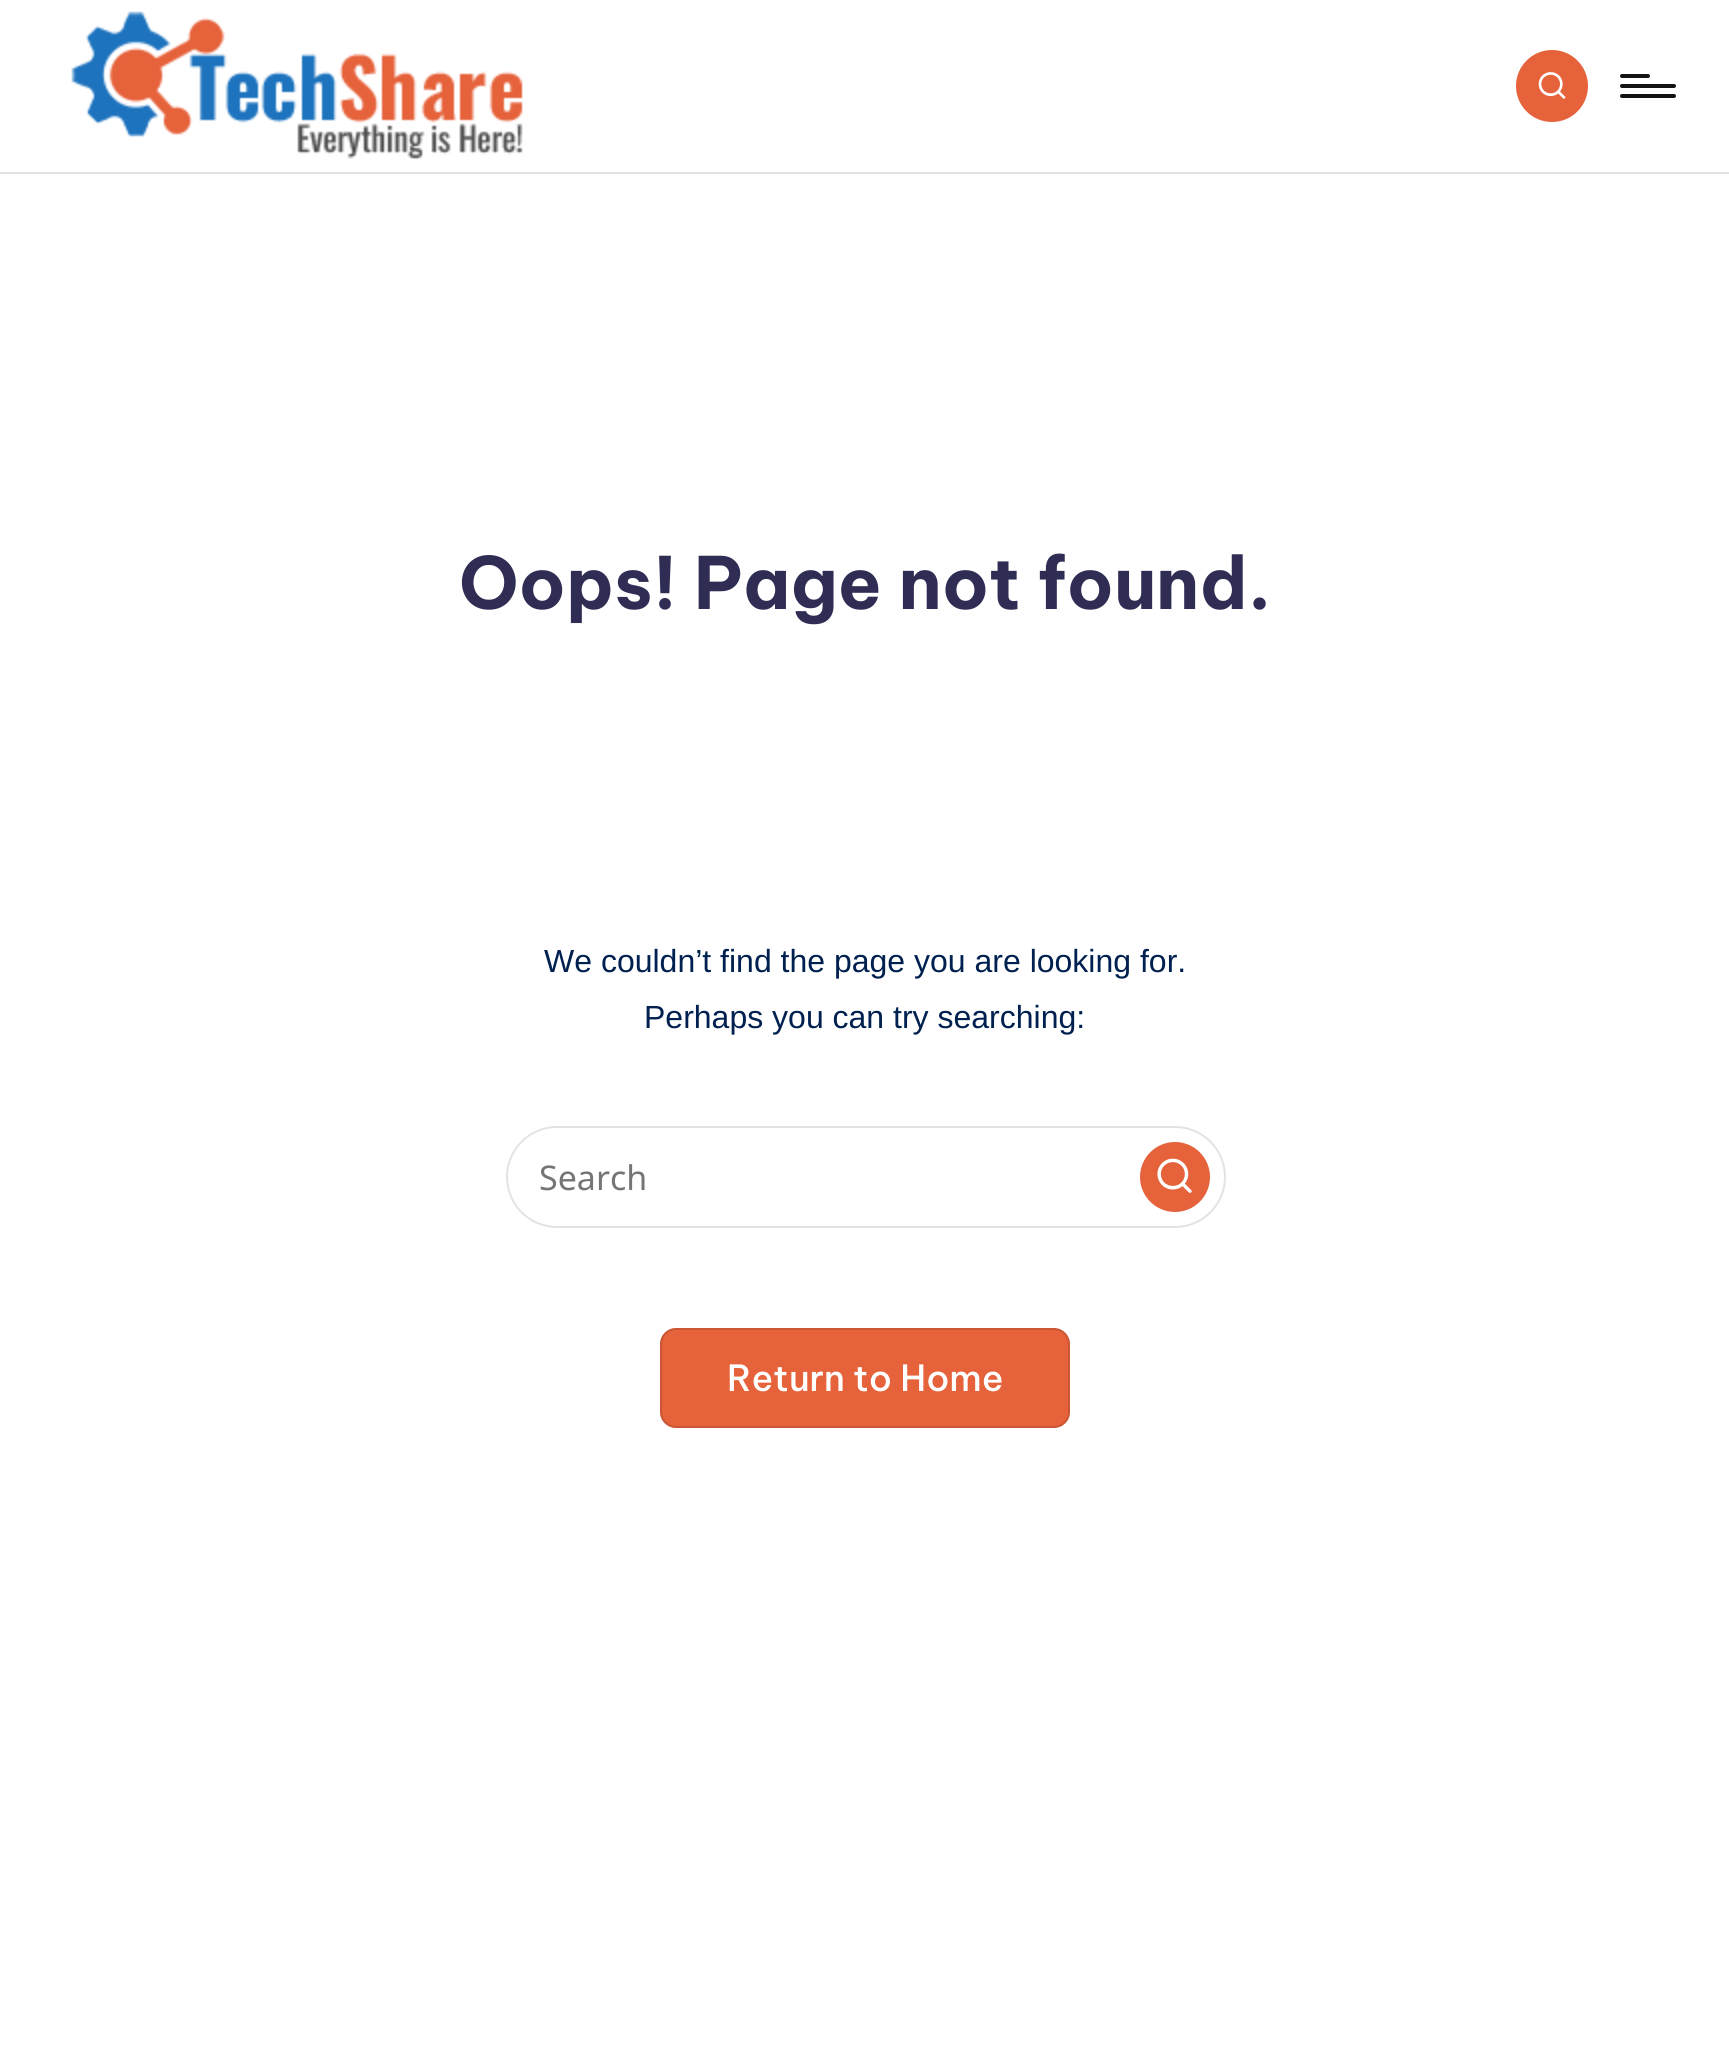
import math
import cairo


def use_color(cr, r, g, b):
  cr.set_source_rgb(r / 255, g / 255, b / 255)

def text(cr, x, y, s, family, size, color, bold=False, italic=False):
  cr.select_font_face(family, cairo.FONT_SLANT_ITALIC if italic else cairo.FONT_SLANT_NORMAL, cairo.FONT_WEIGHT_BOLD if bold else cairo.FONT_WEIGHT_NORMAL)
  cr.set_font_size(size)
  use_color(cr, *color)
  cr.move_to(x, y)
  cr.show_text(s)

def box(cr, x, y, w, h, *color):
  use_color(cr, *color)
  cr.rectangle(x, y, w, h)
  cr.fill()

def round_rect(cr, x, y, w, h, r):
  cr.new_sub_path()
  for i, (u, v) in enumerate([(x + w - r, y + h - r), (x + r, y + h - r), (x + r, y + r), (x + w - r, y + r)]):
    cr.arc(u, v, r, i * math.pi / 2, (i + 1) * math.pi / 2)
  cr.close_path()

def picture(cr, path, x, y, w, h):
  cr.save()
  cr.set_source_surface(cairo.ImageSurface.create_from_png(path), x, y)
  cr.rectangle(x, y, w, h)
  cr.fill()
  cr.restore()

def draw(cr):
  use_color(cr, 255, 255, 255)
  cr.paint()
  box(cr, 0, 172, 1729, 2, 227, 227, 227)
  picture(cr, "img_01.png", 71, 11, 452, 149)
  use_color(cr, 229, 98, 59)
  cr.arc(1552, 86, 36, 0, 2 * math.pi)
  cr.fill()
  picture(cr, "img_02.png", 1538, 72, 28, 27)
  use_color(cr, 19, 19, 21)
  round_rect(cr, 1620, 84, 56, 4, 2)
  cr.fill()
  round_rect(cr, 1620, 74, 30, 4, 2)
  cr.fill()
  round_rect(cr, 1620, 94, 56, 4, 2)
  cr.fill()
  round_rect(cr, 507, 1127, 718, 100, 50)
  use_color(cr, 227, 227, 227)
  cr.stroke()
  use_color(cr, 229, 98, 59)
  cr.arc(1175, 1177, 35, 0, 2 * math.pi)
  cr.fill()
  picture(cr, "img_03.png", 1157, 1158, 35, 35)
  round_rect(cr, 660, 1328, 410, 100, 16)
  cr.fill()
  round_rect(cr, 661, 1329, 408, 98, 15)
  cr.set_source_rgba(0, 0, 0, 0.12)
  cr.stroke()
  text(cr, 459, 609, "Oops! Page not found.", "Be Vietnam Pro", 72, (48, 45, 85), bold=True)
  text(cr, 544, 972, "We couldn’t find the page you are looking for.", "Liberation Sans", 32, (0, 32, 80))
  text(cr, 644, 1028, "Perhaps you can try searching:", "Liberation Sans", 32, (0, 32, 80))
  text(cr, 539, 1190, "Search", "Noto Sans", 34, (117, 117, 117))
  text(cr, 727, 1391, "Return to Home", "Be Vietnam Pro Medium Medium", 36, (255, 255, 255))


surface = cairo.ImageSurface(cairo.FORMAT_RGB24, 1729, 2047)
cr = cairo.Context(surface)
options = cairo.FontOptions()
options.set_hint_metrics(cairo.HINT_METRICS_OFF)
options.set_hint_style(cairo.HINT_STYLE_NONE)
cr.set_font_options(options)
cr.set_miter_limit(4)
draw(cr)
surface.write_to_png("out.png")
